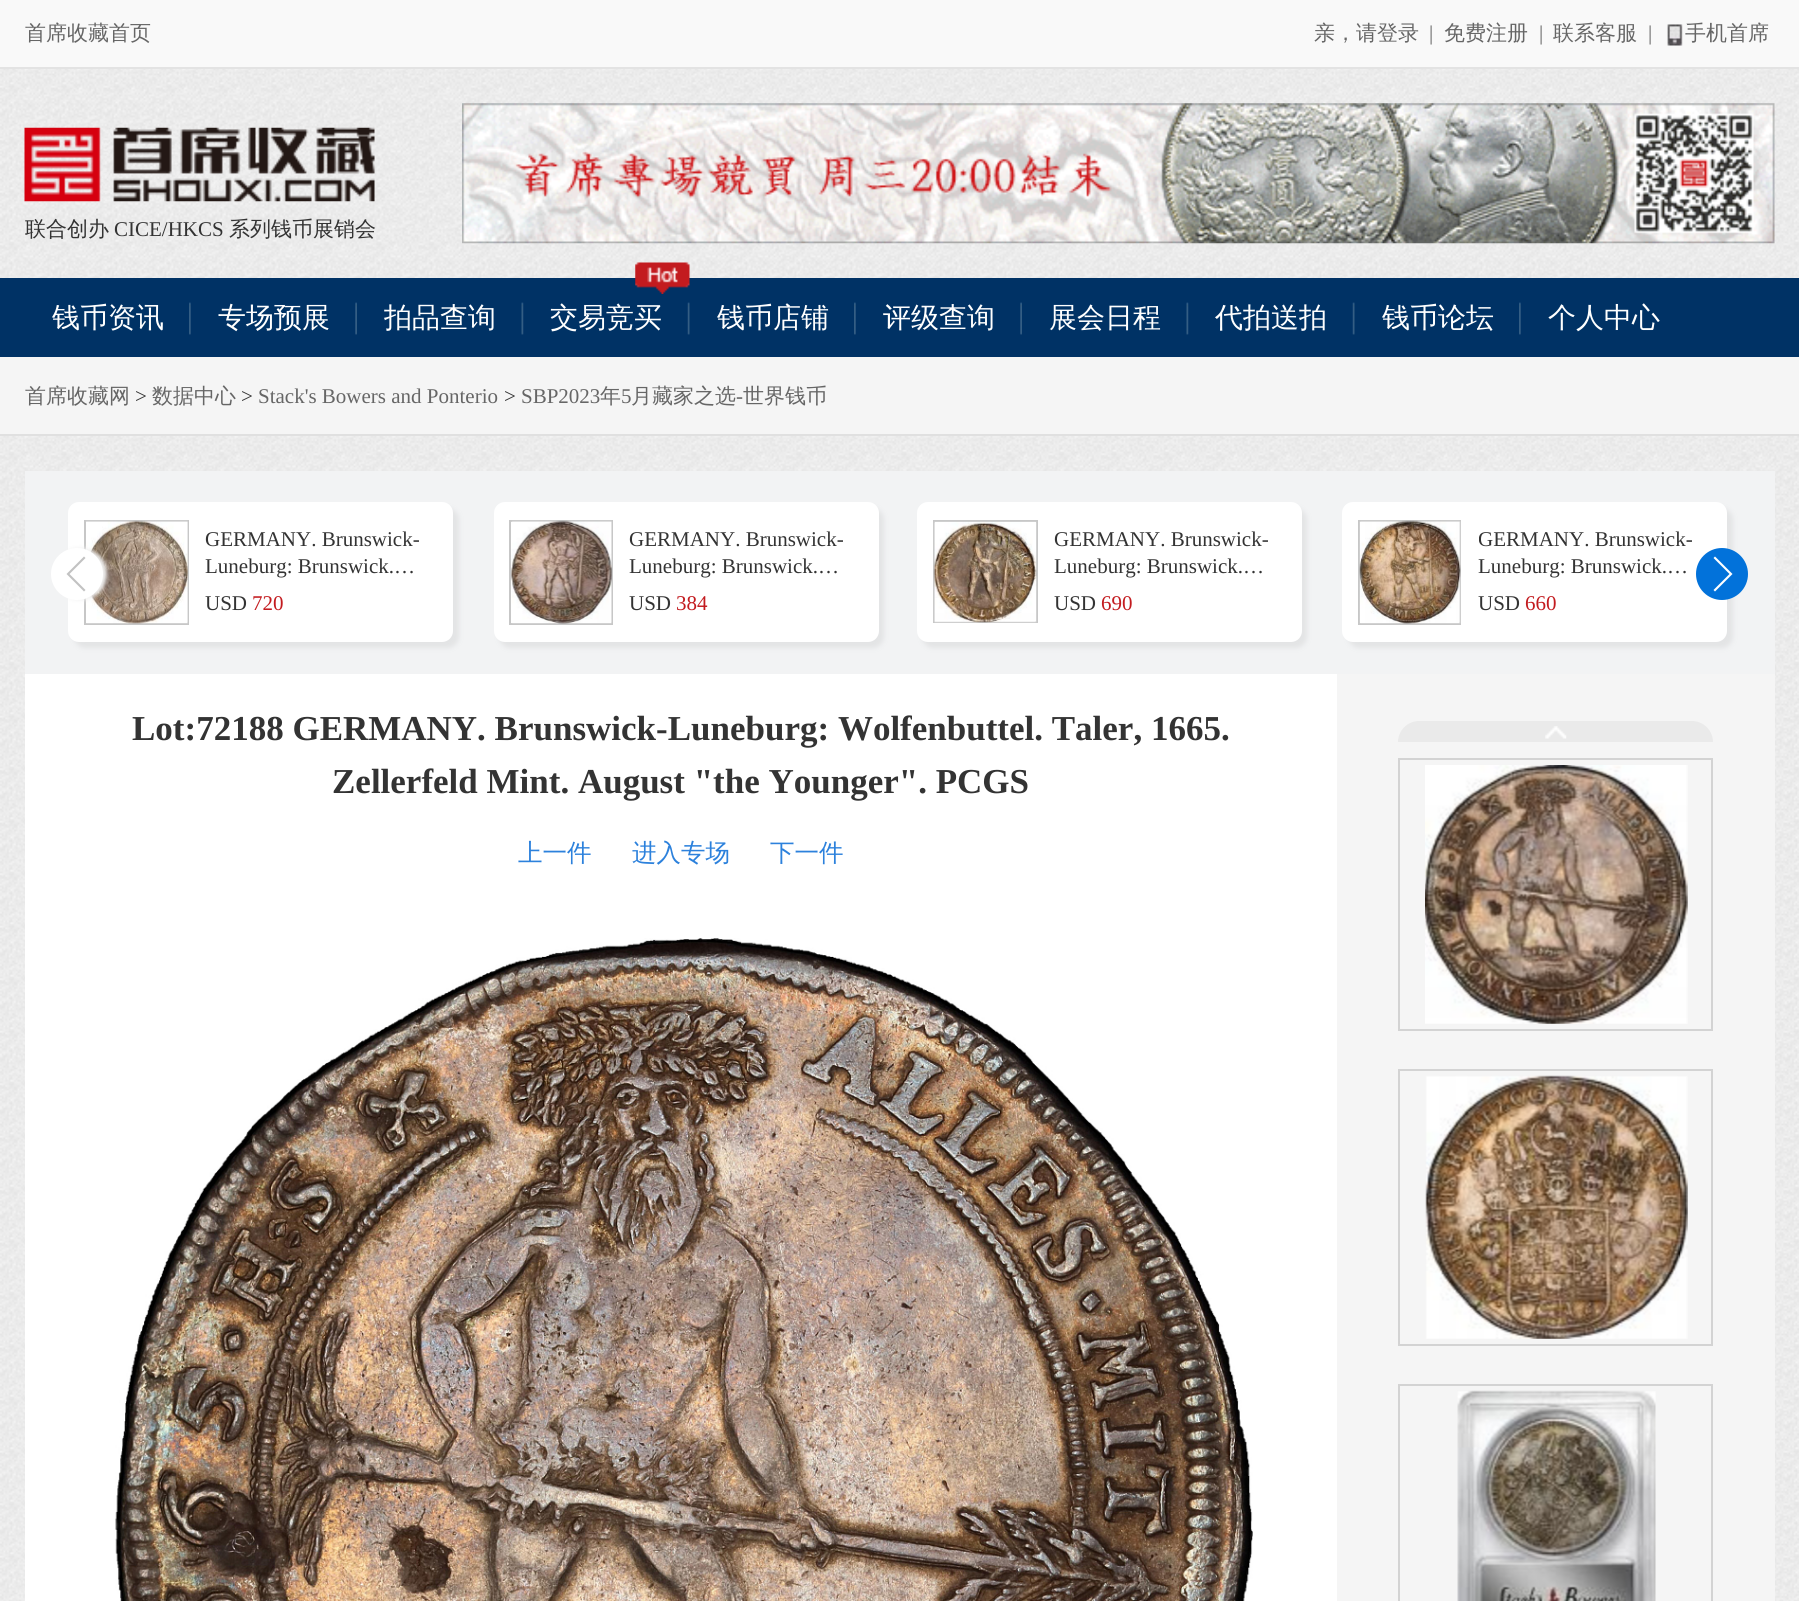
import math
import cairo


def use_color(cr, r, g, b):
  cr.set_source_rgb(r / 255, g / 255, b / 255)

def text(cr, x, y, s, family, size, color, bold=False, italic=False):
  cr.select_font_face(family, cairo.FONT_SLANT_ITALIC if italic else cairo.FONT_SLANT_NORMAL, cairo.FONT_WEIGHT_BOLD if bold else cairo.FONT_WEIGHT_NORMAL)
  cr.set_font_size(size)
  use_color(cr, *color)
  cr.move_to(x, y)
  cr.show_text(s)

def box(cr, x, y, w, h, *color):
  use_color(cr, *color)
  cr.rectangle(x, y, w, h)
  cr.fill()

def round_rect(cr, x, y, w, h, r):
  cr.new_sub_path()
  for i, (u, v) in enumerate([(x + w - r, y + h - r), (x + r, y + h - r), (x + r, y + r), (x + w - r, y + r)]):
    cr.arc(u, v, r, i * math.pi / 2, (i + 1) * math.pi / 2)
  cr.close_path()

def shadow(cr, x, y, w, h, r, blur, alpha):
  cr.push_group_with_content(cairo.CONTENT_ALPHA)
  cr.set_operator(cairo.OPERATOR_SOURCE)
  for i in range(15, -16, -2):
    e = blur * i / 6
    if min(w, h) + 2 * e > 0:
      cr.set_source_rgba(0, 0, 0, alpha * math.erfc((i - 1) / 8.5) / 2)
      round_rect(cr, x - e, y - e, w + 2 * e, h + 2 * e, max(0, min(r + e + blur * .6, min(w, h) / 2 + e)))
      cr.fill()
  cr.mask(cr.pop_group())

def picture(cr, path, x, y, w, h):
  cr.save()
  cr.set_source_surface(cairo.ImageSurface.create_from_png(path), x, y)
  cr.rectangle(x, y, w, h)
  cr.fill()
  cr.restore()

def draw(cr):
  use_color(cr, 255, 255, 255)
  cr.paint()
  picture(cr, "img_01.png", 0, 69, 1799, 1532)
  box(cr, 0, 0, 1799, 67, 249, 249, 249)
  box(cr, 0, 67, 1799, 2, 227, 227, 227)
  picture(cr, "img_02.png", 1667, 24, 16, 22)
  picture(cr, "img_03.png", 24, 127, 351, 75)
  picture(cr, "img_04.png", 462, 103, 1313, 141)
  box(cr, 0, 278, 1799, 79, 0, 50, 101)
  picture(cr, "img_05.png", 189, 302, 2, 33)
  picture(cr, "img_06.png", 355, 302, 2, 33)
  picture(cr, "img_07.png", 521, 302, 3, 33)
  picture(cr, "img_08.png", 687, 302, 3, 33)
  picture(cr, "img_09.png", 635, 262, 55, 32)
  picture(cr, "img_05.png", 854, 302, 2, 33)
  picture(cr, "img_06.png", 1020, 302, 2, 33)
  picture(cr, "img_07.png", 1186, 302, 3, 33)
  picture(cr, "img_08.png", 1352, 302, 3, 33)
  picture(cr, "img_05.png", 1519, 302, 2, 33)
  box(cr, 0, 357, 1799, 77, 245, 245, 245)
  box(cr, 0, 434, 1799, 2, 224, 224, 224)
  box(cr, 25, 674, 1312, 927, 255, 255, 255)
  box(cr, 25, 471, 1750, 203, 242, 243, 244)
  use_color(cr, 227, 228, 229)
  shadow(cr, 74, 508, 385, 140, 11, 2.5, 1)
  use_color(cr, 255, 255, 255)
  round_rect(cr, 68, 502, 385, 140, 11)
  cr.fill()
  cr.rectangle(85, 521, 103, 103)
  use_color(cr, 199, 199, 199)
  cr.stroke()
  picture(cr, "img_10.png", 86, 520, 102, 104)
  use_color(cr, 241, 241, 241)
  shadow(cr, 54, 548, 53, 52, 26, 2, 1)
  use_color(cr, 255, 255, 255)
  cr.arc(77, 574, 26, 0, 2 * math.pi)
  cr.fill()
  use_color(cr, 194, 194, 194)
  cr.new_path()
  cr.move_to(66.5, 574)
  cr.line_to(84, 556.5)
  cr.line_to(85.5, 558)
  cr.line_to(69.5, 574)
  cr.line_to(85.5, 590)
  cr.line_to(84, 591.5)
  cr.close_path()
  cr.fill()
  use_color(cr, 227, 228, 229)
  shadow(cr, 499, 508, 385, 140, 11, 2.5, 1)
  use_color(cr, 255, 255, 255)
  round_rect(cr, 494, 502, 385, 140, 11)
  cr.fill()
  cr.rectangle(510, 521, 102, 103)
  use_color(cr, 199, 199, 199)
  cr.stroke()
  picture(cr, "img_11.png", 511, 520, 101, 104)
  use_color(cr, 227, 228, 229)
  shadow(cr, 922, 508, 385, 140, 11, 2.5, 1)
  use_color(cr, 255, 255, 255)
  round_rect(cr, 917, 502, 385, 140, 11)
  cr.fill()
  cr.rectangle(934, 521, 103, 101)
  use_color(cr, 199, 199, 199)
  cr.stroke()
  picture(cr, "img_12.png", 933, 521, 104, 102)
  use_color(cr, 227, 228, 229)
  shadow(cr, 1348, 508, 385, 140, 11, 2.5, 1)
  use_color(cr, 255, 255, 255)
  round_rect(cr, 1342, 502, 385, 140, 11)
  cr.fill()
  cr.rectangle(1359, 521, 101, 103)
  use_color(cr, 199, 199, 199)
  cr.stroke()
  picture(cr, "img_13.png", 1359, 520, 102, 104)
  use_color(cr, 2, 114, 218)
  cr.arc(1722, 574, 26, 0, 2 * math.pi)
  cr.fill()
  use_color(cr, 255, 255, 255)
  cr.new_path()
  cr.move_to(1732.5, 574)
  cr.line_to(1715, 591.5)
  cr.line_to(1713.5, 590)
  cr.line_to(1729.5, 574)
  cr.line_to(1713.5, 558)
  cr.line_to(1715, 556.5)
  cr.close_path()
  cr.fill()
  picture(cr, "img_14.png", 115, 938, 1138, 663)
  box(cr, 1337, 674, 438, 927, 245, 245, 245)
  use_color(cr, 234, 234, 234)
  cr.new_path()
  cr.move_to(1419, 721)
  cr.line_to(1692, 721)
  cr.curve_to(1703.5, 721, 1713, 730.5, 1713, 742)
  cr.line_to(1398, 742)
  cr.curve_to(1398, 730.5, 1407.5, 721, 1419, 721)
  cr.close_path()
  cr.fill()
  picture(cr, "img_15.png", 1545, 726, 22, 13)
  cr.rectangle(1399, 759, 313, 271)
  use_color(cr, 211, 211, 211)
  cr.stroke()
  picture(cr, "img_16.png", 1425, 765, 263, 259)
  cr.rectangle(1399, 1070, 313, 275)
  cr.stroke()
  picture(cr, "img_17.png", 1425, 1075, 263, 264)
  cr.rectangle(1399, 1385, 313, 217)
  cr.stroke()
  picture(cr, "img_18.png", 1457, 1390, 199, 211)
  text(cr, 25, 40, "首席收藏首页", "WenQuanYi Zen Hei Medium", 21, (102, 102, 102))
  text(cr, 1314, 40, "亲，请登录", "WenQuanYi Zen Hei Medium", 21, (102, 102, 102))
  text(cr, 1429, 40, "|", "Liberation Serif", 21, (102, 102, 102))
  text(cr, 1444, 40, "免费注册", "WenQuanYi Zen Hei Medium", 21, (102, 102, 102))
  text(cr, 1539, 40, "|", "Liberation Serif", 21, (102, 102, 102))
  text(cr, 1553, 40, "联系客服", "WenQuanYi Zen Hei Medium", 21, (102, 102, 102))
  text(cr, 1648, 40, "|", "Liberation Serif", 21, (102, 102, 102))
  text(cr, 1685, 40, "手机首席", "WenQuanYi Zen Hei Medium", 21, (102, 102, 102))
  text(cr, 25, 236, "联合创办", "WenQuanYi Zen Hei Medium", 21, (51, 51, 51))
  text(cr, 114, 236, "CICE/HKCS", "Liberation Serif", 21, (51, 51, 51))
  text(cr, 229, 236, "系列钱币展销会", "WenQuanYi Zen Hei Medium", 21, (51, 51, 51))
  text(cr, 52, 327, "钱币资讯", "WenQuanYi Zen Hei Medium", 28, (255, 255, 255))
  text(cr, 218, 327, "专场预展", "WenQuanYi Zen Hei Medium", 28, (255, 255, 255))
  text(cr, 384, 327, "拍品查询", "WenQuanYi Zen Hei Medium", 28, (255, 255, 255))
  text(cr, 550, 327, "交易竞买", "WenQuanYi Zen Hei Medium", 28, (255, 255, 255))
  text(cr, 717, 327, "钱币店铺", "WenQuanYi Zen Hei Medium", 28, (255, 255, 255))
  text(cr, 883, 327, "评级查询", "WenQuanYi Zen Hei Medium", 28, (255, 255, 255))
  text(cr, 1049, 327, "展会日程", "WenQuanYi Zen Hei Medium", 28, (255, 255, 255))
  text(cr, 1215, 327, "代拍送拍", "WenQuanYi Zen Hei Medium", 28, (255, 255, 255))
  text(cr, 1382, 327, "钱币论坛", "WenQuanYi Zen Hei Medium", 28, (255, 255, 255))
  text(cr, 1548, 327, "个人中心", "WenQuanYi Zen Hei Medium", 28, (255, 255, 255))
  text(cr, 25, 403, "首席收藏网", "WenQuanYi Zen Hei Medium", 21, (102, 102, 102))
  text(cr, 135, 403, ">", "Liberation Serif", 21, (51, 51, 51))
  text(cr, 152, 403, "数据中心", "WenQuanYi Zen Hei Medium", 21, (102, 102, 102))
  text(cr, 241, 403, ">", "Liberation Serif", 21, (51, 51, 51))
  text(cr, 258, 403, "Stack's Bowers and Ponterio", "Liberation Serif", 21, (102, 102, 102))
  text(cr, 504, 403, ">", "Liberation Serif", 21, (51, 51, 51))
  text(cr, 521, 403, "SBP2023", "Liberation Serif", 21, (102, 102, 102))
  text(cr, 600, 403, "年", "WenQuanYi Zen Hei Medium", 21, (102, 102, 102))
  text(cr, 621, 403, "5", "Liberation Serif", 21, (102, 102, 102))
  text(cr, 631, 403, "月藏家之选", "WenQuanYi Zen Hei Medium", 21, (102, 102, 102))
  text(cr, 736, 403, "-", "Liberation Serif", 21, (102, 102, 102))
  text(cr, 743, 403, "世界钱币", "WenQuanYi Zen Hei Medium", 21, (102, 102, 102))
  text(cr, 205, 546, "GERMANY. Brunswick-", "Liberation Serif", 21, (51, 51, 51))
  text(cr, 205, 573, "Luneburg: Brunswick.…", "Liberation Serif", 21, (51, 51, 51))
  text(cr, 205, 610, "USD", "Liberation Serif", 21, (51, 51, 51))
  text(cr, 252, 610, "720", "Liberation Serif", 21, (195, 27, 31))
  text(cr, 629, 546, "GERMANY. Brunswick-", "Liberation Serif", 21, (51, 51, 51))
  text(cr, 629, 573, "Luneburg: Brunswick.…", "Liberation Serif", 21, (51, 51, 51))
  text(cr, 629, 610, "USD", "Liberation Serif", 21, (51, 51, 51))
  text(cr, 676, 610, "384", "Liberation Serif", 21, (195, 27, 31))
  text(cr, 1054, 546, "GERMANY. Brunswick-", "Liberation Serif", 21, (51, 51, 51))
  text(cr, 1054, 573, "Luneburg: Brunswick.…", "Liberation Serif", 21, (51, 51, 51))
  text(cr, 1054, 610, "USD", "Liberation Serif", 21, (51, 51, 51))
  text(cr, 1101, 610, "690", "Liberation Serif", 21, (195, 27, 31))
  cr.save()
  cr.rectangle(1479, 527, 248, 54)
  cr.clip()
  text(cr, 1478, 546, "GERMANY. Brunswick-", "Liberation Serif", 21, (51, 51, 51))
  cr.restore()
  text(cr, 1478, 573, "Luneburg: Brunswick.…", "Liberation Serif", 21, (51, 51, 51))
  text(cr, 1478, 610, "USD", "Liberation Serif", 21, (51, 51, 51))
  text(cr, 1525, 610, "660", "Liberation Serif", 21, (195, 27, 31))
  text(cr, 132, 740, "Lot:72188 GERMANY. Brunswick-Luneburg: Wolfenbuttel. Taler, 1665.", "Liberation Serif", 35, (51, 51, 51), bold=True)
  text(cr, 332, 793, "Zellerfeld Mint. August \"the Younger\". PCGS", "Liberation Serif", 35, (51, 51, 51), bold=True)
  text(cr, 518, 861, "上一件", "WenQuanYi Zen Hei Medium", 24.5, (44, 129, 220))
  text(cr, 632, 861, "进入专场", "WenQuanYi Zen Hei Medium", 24.5, (44, 129, 220))
  text(cr, 770, 861, "下一件", "WenQuanYi Zen Hei Medium", 24.5, (44, 129, 220))


surface = cairo.ImageSurface(cairo.FORMAT_RGB24, 1799, 1601)
cr = cairo.Context(surface)
options = cairo.FontOptions()
options.set_hint_metrics(cairo.HINT_METRICS_OFF)
options.set_hint_style(cairo.HINT_STYLE_NONE)
cr.set_font_options(options)
cr.set_miter_limit(4)
draw(cr)
surface.write_to_png("out.png")
